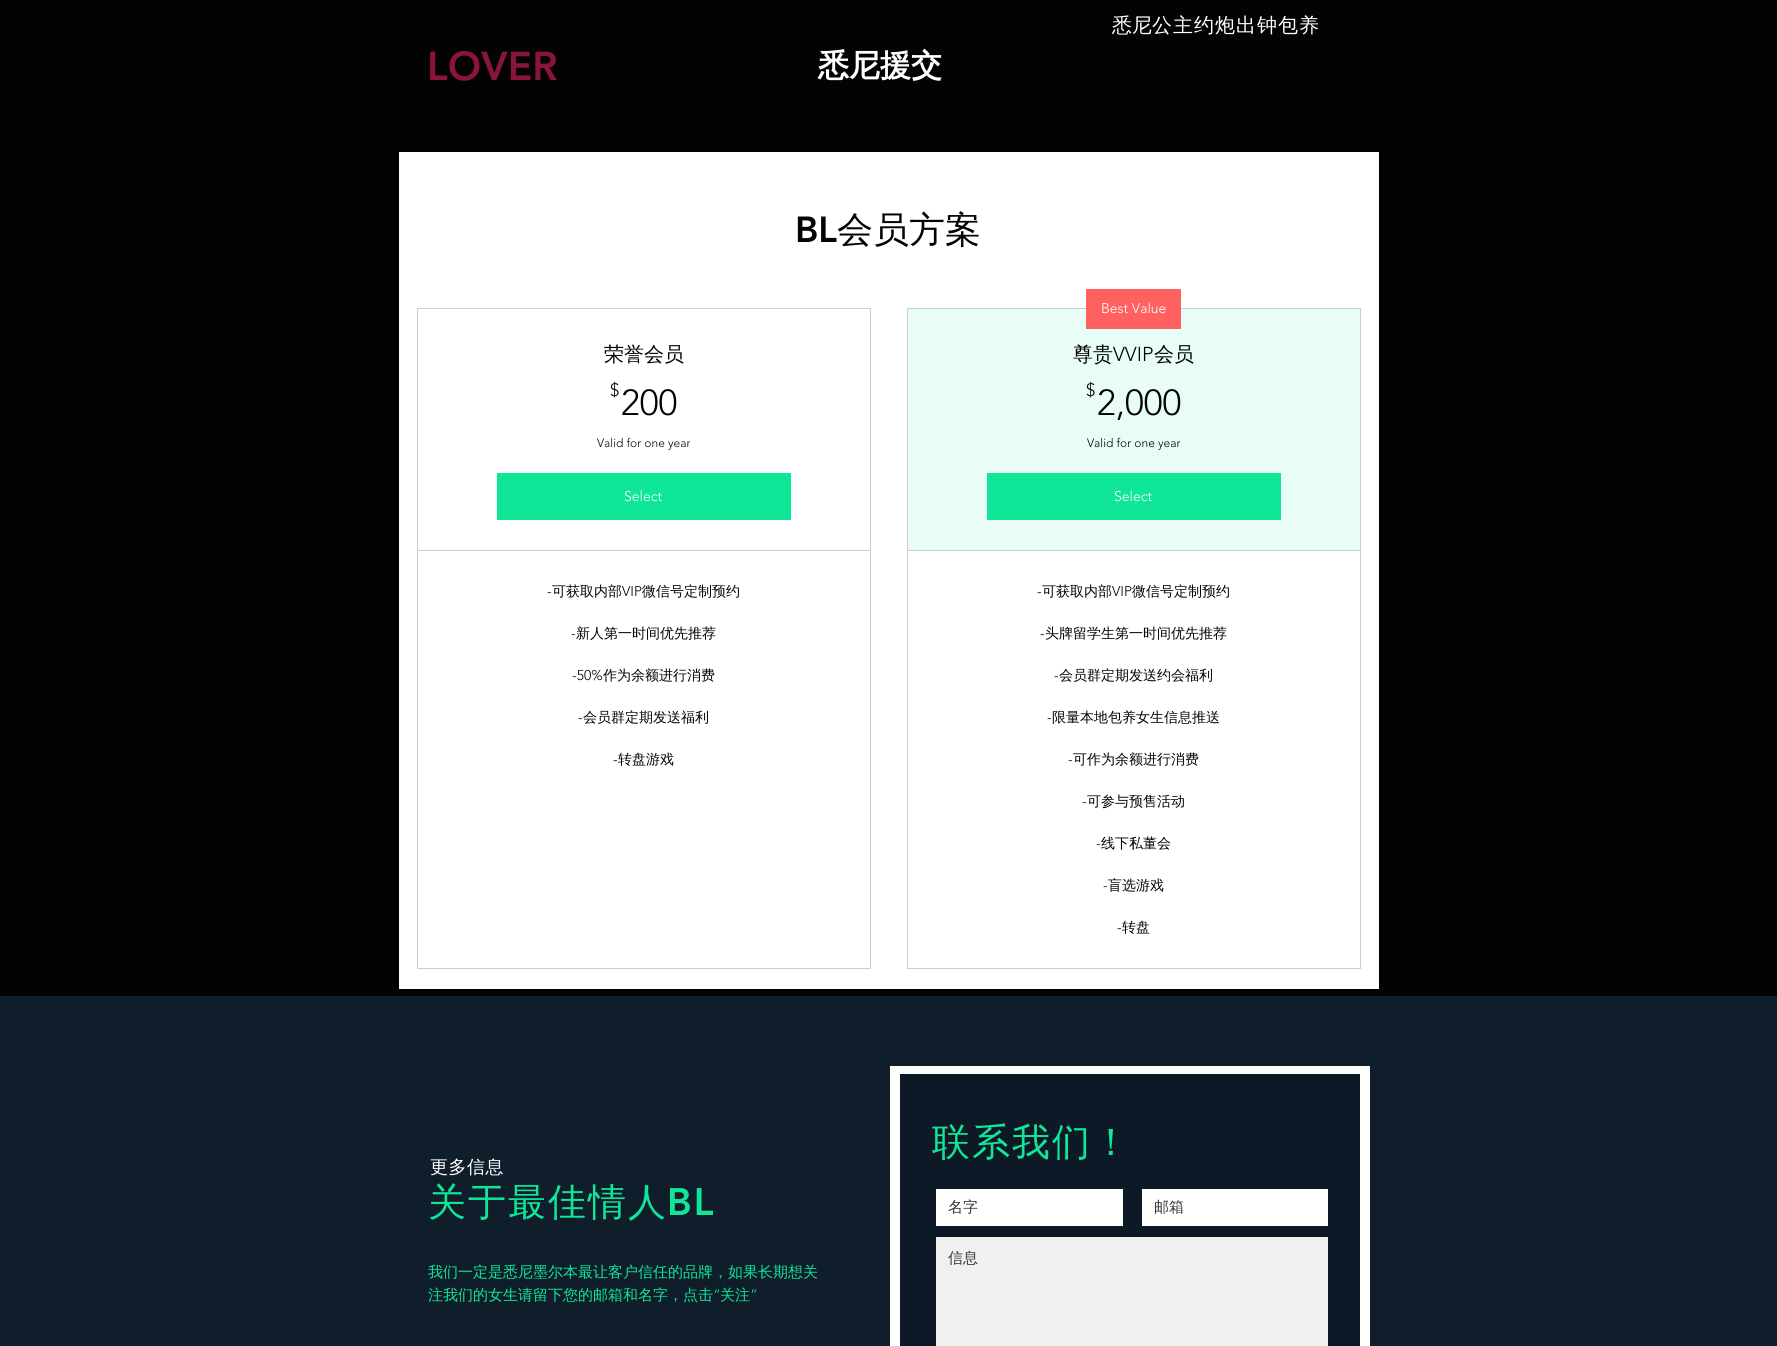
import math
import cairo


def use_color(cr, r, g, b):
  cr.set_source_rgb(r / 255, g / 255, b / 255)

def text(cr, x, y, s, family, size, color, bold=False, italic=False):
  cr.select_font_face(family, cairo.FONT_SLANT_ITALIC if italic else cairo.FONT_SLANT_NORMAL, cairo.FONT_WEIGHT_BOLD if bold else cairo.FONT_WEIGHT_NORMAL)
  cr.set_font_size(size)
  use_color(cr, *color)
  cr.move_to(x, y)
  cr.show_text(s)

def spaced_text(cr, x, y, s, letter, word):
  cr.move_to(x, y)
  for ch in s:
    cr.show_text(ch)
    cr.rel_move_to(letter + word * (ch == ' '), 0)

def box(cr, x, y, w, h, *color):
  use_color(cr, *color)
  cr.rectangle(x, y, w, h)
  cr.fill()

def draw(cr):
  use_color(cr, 3, 3, 3)
  cr.paint()
  box(cr, 399, 152, 980, 837, 255, 255, 255)
  cr.rectangle(417.5, 308.5, 453, 660)
  use_color(cr, 205, 205, 205)
  cr.set_line_width(1)
  cr.stroke()
  box(cr, 497, 473, 294, 47, 16, 230, 152)
  box(cr, 418, 550, 452, 1, 205, 205, 205)
  cr.rectangle(907.5, 308.5, 453, 660)
  cr.stroke()
  box(cr, 908, 309, 452, 241, 231, 253, 245)
  box(cr, 1086, 289, 95, 40, 255, 97, 97)
  box(cr, 987, 473, 294, 47, 16, 230, 152)
  box(cr, 908, 550, 452, 1, 205, 205, 205)
  box(cr, 0, 996, 1777, 350, 16, 29, 43)
  cr.rectangle(895, 1071, 470, 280)
  use_color(cr, 255, 255, 255)
  cr.set_line_width(10)
  cr.stroke()
  box(cr, 900, 1074, 460, 272, 13, 25, 38)
  box(cr, 936, 1189, 187, 37, 255, 255, 255)
  box(cr, 1142, 1189, 186, 37, 255, 255, 255)
  box(cr, 936, 1237, 392, 109, 240, 240, 240)
  text(cr, 1112, 32, "悉尼", "WenQuanYi Zen Hei Medium", 20, (255, 255, 255))
  spaced_text(cr, 1152, 32, "公主约炮出钟包养", 1, 0)
  text(cr, 427, 80, "LOVER", "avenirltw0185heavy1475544 Black", 40, (139, 20, 60))
  text(cr, 818, 76, "悉尼援交", "WenQuanYi Zen Hei", 31, (255, 255, 255), bold=True)
  text(cr, 795, 242, "BL", "avenirltw0185heavy1475544 Black", 36, (3, 3, 3))
  text(cr, 837, 242, "会员方案", "WenQuanYi Zen Hei Medium", 36, (3, 3, 3))
  text(cr, 604, 361, "荣誉会员", "WenQuanYi Zen Hei Medium", 20, (3, 3, 3))
  text(cr, 610, 396, "$", "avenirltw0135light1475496 Light", 18, (3, 3, 3))
  text(cr, 621, 415, "200", "avenirltw0135light1475496 Light", 36, (3, 3, 3))
  text(cr, 597, 447, "Valid for one year", "avenirltw0135light1475496 Light", 12, (3, 3, 3))
  text(cr, 624, 501, "Select", "avenirltw0135light1475496 Light", 14, (255, 255, 255))
  text(cr, 547, 596, "-", "avenirltw0135light1475496 Light", 14, (3, 3, 3))
  text(cr, 552, 596, "可获取内部", "WenQuanYi Zen Hei Medium", 14, (3, 3, 3))
  text(cr, 622, 596, "VIP", "avenirltw0135light1475496 Light", 14, (3, 3, 3))
  text(cr, 642, 596, "微信号定制预约", "WenQuanYi Zen Hei Medium", 14, (3, 3, 3))
  text(cr, 571, 638, "-", "avenirltw0135light1475496 Light", 14, (3, 3, 3))
  text(cr, 576, 638, "新人第一时间优先推荐", "WenQuanYi Zen Hei Medium", 14, (3, 3, 3))
  text(cr, 572, 680, "-50%", "avenirltw0135light1475496 Light", 14, (3, 3, 3))
  text(cr, 603, 680, "作为余额进行消费", "WenQuanYi Zen Hei Medium", 14, (3, 3, 3))
  text(cr, 578, 722, "-", "avenirltw0135light1475496 Light", 14, (3, 3, 3))
  text(cr, 583, 722, "会员群定期发送福利", "WenQuanYi Zen Hei Medium", 14, (3, 3, 3))
  text(cr, 613, 764, "-", "avenirltw0135light1475496 Light", 14, (3, 3, 3))
  text(cr, 618, 764, "转盘游戏", "WenQuanYi Zen Hei Medium", 14, (3, 3, 3))
  text(cr, 1101, 313, "Best Value", "avenirltw0135light1475496 Light", 14, (255, 255, 255))
  text(cr, 1073, 361, "尊贵", "WenQuanYi Zen Hei Medium", 20, (3, 3, 3))
  text(cr, 1113, 361, "VVIP", "avenirltw0135light1475496 Light", 20, (3, 3, 3))
  text(cr, 1154, 361, "会员", "WenQuanYi Zen Hei Medium", 20, (3, 3, 3))
  text(cr, 1086, 396, "$", "avenirltw0135light1475496 Light", 18, (3, 3, 3))
  text(cr, 1097, 415, "2,000", "avenirltw0135light1475496 Light", 36, (3, 3, 3))
  text(cr, 1087, 447, "Valid for one year", "avenirltw0135light1475496 Light", 12, (3, 3, 3))
  text(cr, 1114, 501, "Select", "avenirltw0135light1475496 Light", 14, (255, 255, 255))
  text(cr, 1037, 596, "-", "avenirltw0135light1475496 Light", 14, (3, 3, 3))
  text(cr, 1042, 596, "可获取内部", "WenQuanYi Zen Hei Medium", 14, (3, 3, 3))
  text(cr, 1112, 596, "VIP", "avenirltw0135light1475496 Light", 14, (3, 3, 3))
  text(cr, 1132, 596, "微信号定制预约", "WenQuanYi Zen Hei Medium", 14, (3, 3, 3))
  text(cr, 1040, 638, "-", "avenirltw0135light1475496 Light", 14, (3, 3, 3))
  text(cr, 1045, 638, "头牌留学生第一时间优先推荐", "WenQuanYi Zen Hei Medium", 14, (3, 3, 3))
  text(cr, 1054, 680, "-", "avenirltw0135light1475496 Light", 14, (3, 3, 3))
  text(cr, 1059, 680, "会员群定期发送约会福利", "WenQuanYi Zen Hei Medium", 14, (3, 3, 3))
  text(cr, 1047, 722, "-", "avenirltw0135light1475496 Light", 14, (3, 3, 3))
  text(cr, 1052, 722, "限量本地包养女生信息推送", "WenQuanYi Zen Hei Medium", 14, (3, 3, 3))
  text(cr, 1068, 764, "-", "avenirltw0135light1475496 Light", 14, (3, 3, 3))
  text(cr, 1073, 764, "可作为余额进行消费", "WenQuanYi Zen Hei Medium", 14, (3, 3, 3))
  text(cr, 1082, 806, "-", "avenirltw0135light1475496 Light", 14, (3, 3, 3))
  text(cr, 1087, 806, "可参与预售活动", "WenQuanYi Zen Hei Medium", 14, (3, 3, 3))
  text(cr, 1096, 848, "-", "avenirltw0135light1475496 Light", 14, (3, 3, 3))
  text(cr, 1101, 848, "线下私董会", "WenQuanYi Zen Hei Medium", 14, (3, 3, 3))
  text(cr, 1103, 890, "-", "avenirltw0135light1475496 Light", 14, (3, 3, 3))
  text(cr, 1108, 890, "盲选游戏", "WenQuanYi Zen Hei Medium", 14, (3, 3, 3))
  text(cr, 1117, 932, "-", "avenirltw0135light1475496 Light", 14, (3, 3, 3))
  text(cr, 1122, 932, "转盘", "WenQuanYi Zen Hei Medium", 14, (3, 3, 3))
  cr.set_font_size(18)
  use_color(cr, 255, 255, 255)
  spaced_text(cr, 430, 1173, "更多信息", 0.5, 0)
  cr.set_font_size(38)
  use_color(cr, 16, 230, 152)
  spaced_text(cr, 932, 1155, "联系我们！", 2, 0)
  text(cr, 948, 1212, "名字", "WenQuanYi Zen Hei Medium", 15, (51, 51, 51))
  text(cr, 1154, 1212, "邮箱", "WenQuanYi Zen Hei Medium", 15, (51, 51, 51))
  text(cr, 948, 1263, "信息", "WenQuanYi Zen Hei Medium", 15, (51, 51, 51))
  cr.set_font_size(38)
  use_color(cr, 16, 230, 152)
  spaced_text(cr, 428, 1215, "关于最佳情人", 2, 0)
  cr.select_font_face("avenirltw0185heavy1475544 Black")
  spaced_text(cr, 667, 1215, "BL", 2, 0)
  text(cr, 428, 1277, "我们一定是悉尼墨尔本最让客户信任的品牌，如果长期想关", "WenQuanYi Zen Hei Medium", 15, (16, 230, 152))
  text(cr, 428, 1300, "注我们的女生请留下您的邮箱和名字，点击", "WenQuanYi Zen Hei Medium", 15, (16, 230, 152))
  text(cr, 713, 1300, "“", "avenirltw0135light1475496 Light", 15, (16, 230, 152))
  text(cr, 720, 1300, "关注", "WenQuanYi Zen Hei Medium", 15, (16, 230, 152))
  text(cr, 750, 1300, "”", "avenirltw0135light1475496 Light", 15, (16, 230, 152))


surface = cairo.ImageSurface(cairo.FORMAT_RGB24, 1777, 1346)
cr = cairo.Context(surface)
options = cairo.FontOptions()
options.set_hint_metrics(cairo.HINT_METRICS_OFF)
options.set_hint_style(cairo.HINT_STYLE_NONE)
cr.set_font_options(options)
cr.set_miter_limit(4)
draw(cr)
surface.write_to_png("out.png")
